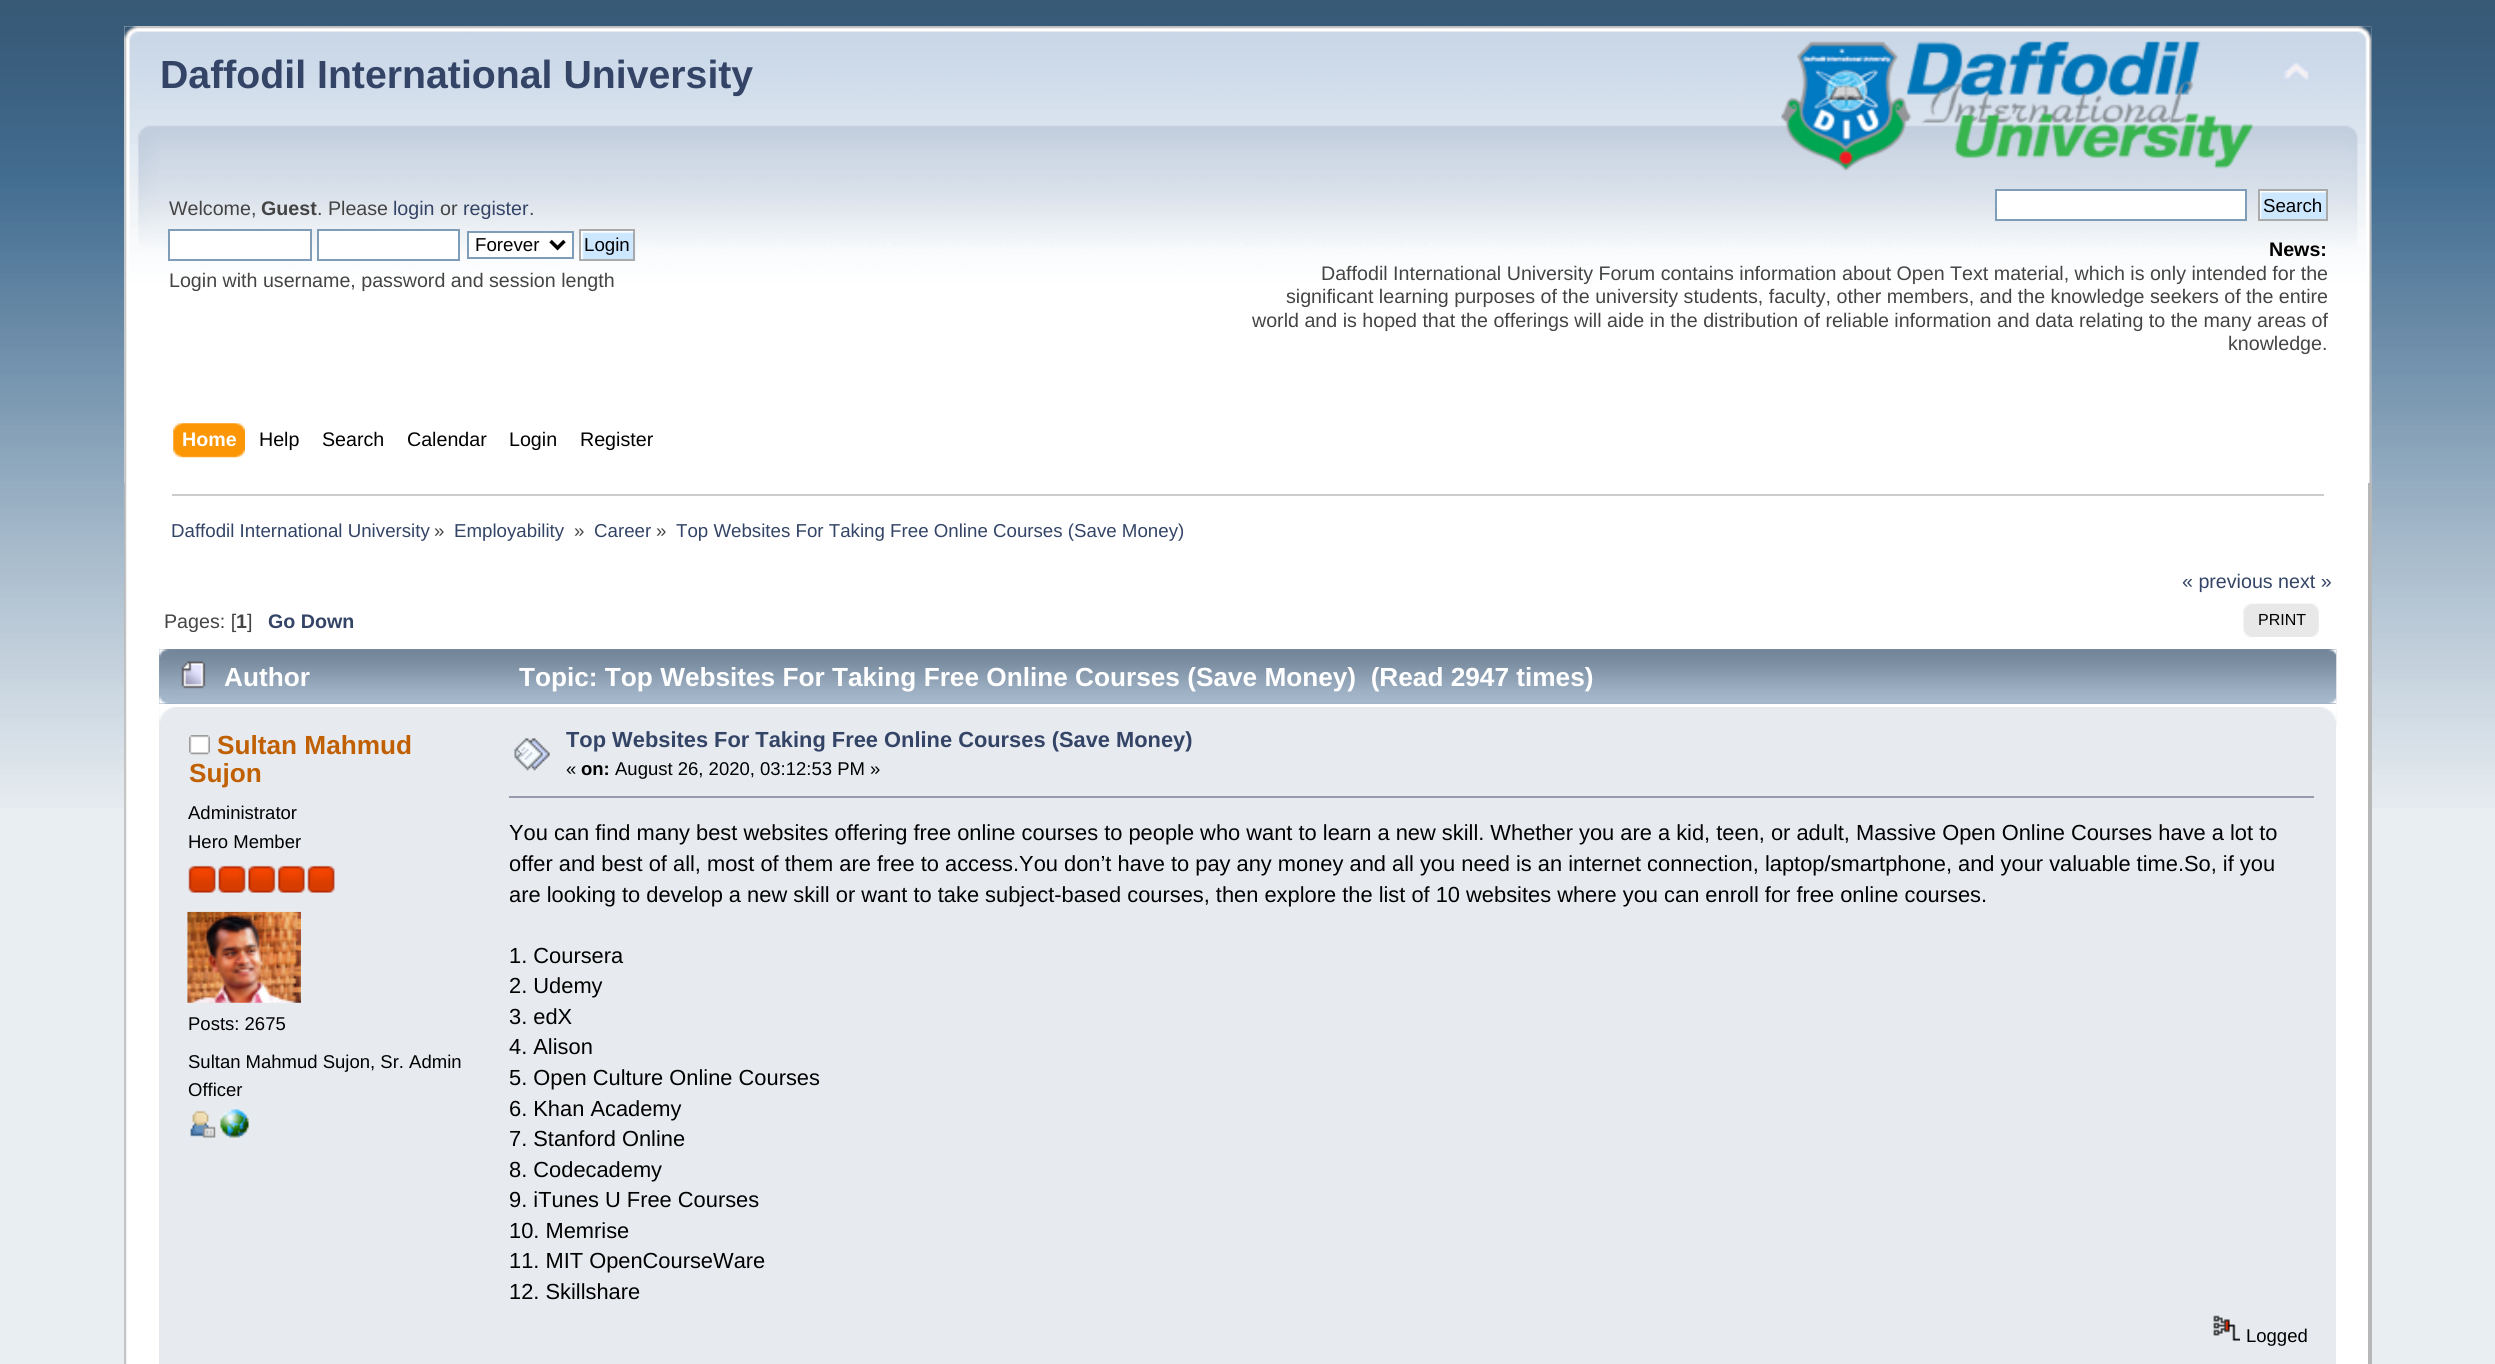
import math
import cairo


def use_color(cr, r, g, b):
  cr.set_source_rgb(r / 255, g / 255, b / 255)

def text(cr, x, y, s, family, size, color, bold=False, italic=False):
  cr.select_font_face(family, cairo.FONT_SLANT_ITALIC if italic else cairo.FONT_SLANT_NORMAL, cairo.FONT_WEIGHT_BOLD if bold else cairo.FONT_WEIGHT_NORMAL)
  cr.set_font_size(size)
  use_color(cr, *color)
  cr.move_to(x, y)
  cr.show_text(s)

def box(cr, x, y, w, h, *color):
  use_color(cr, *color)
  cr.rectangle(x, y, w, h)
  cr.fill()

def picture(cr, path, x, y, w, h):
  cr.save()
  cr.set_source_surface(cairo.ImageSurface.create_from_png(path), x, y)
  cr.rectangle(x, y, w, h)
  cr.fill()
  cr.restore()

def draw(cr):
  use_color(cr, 233, 238, 242)
  cr.paint()
  picture(cr, "img_01.png", 0, 0, 2495, 808)
  box(cr, 124, 26, 2247, 457, 254, 254, 254)
  picture(cr, "img_02.png", 124, 26, 2248, 457)
  picture(cr, "img_03.png", 159, 26, 2213, 457)
  picture(cr, "img_04.png", 1781, 41, 472, 130)
  picture(cr, "img_05.png", 2284, 62, 26, 20)
  use_color(cr, 255, 255, 255)
  cr.rectangle(169, 230, 142, 30)
  cr.fill_preserve()
  use_color(cr, 127, 157, 185)
  cr.stroke()
  use_color(cr, 255, 255, 255)
  cr.rectangle(318, 230, 141, 30)
  cr.fill_preserve()
  use_color(cr, 127, 157, 185)
  cr.stroke()
  use_color(cr, 255, 255, 255)
  cr.rectangle(468, 232, 105, 26)
  cr.fill_preserve()
  use_color(cr, 127, 157, 185)
  cr.stroke()
  cr.new_path()
  cr.move_to(550.5, 241)
  cr.line_to(557.5, 248)
  cr.line_to(564.5, 241)
  use_color(cr, 0, 0, 0)
  cr.set_line_width(3.5)
  cr.stroke()
  picture(cr, "img_06.png", 581, 231, 55, 30)
  cr.rectangle(580, 230, 54, 30)
  use_color(cr, 170, 170, 170)
  cr.set_line_width(2)
  cr.stroke()
  use_color(cr, 255, 255, 255)
  cr.rectangle(1996, 190, 250, 30)
  cr.fill_preserve()
  use_color(cr, 127, 157, 185)
  cr.stroke()
  picture(cr, "img_07.png", 2260, 191, 66, 28)
  cr.rectangle(2259, 190, 68, 30)
  use_color(cr, 170, 170, 170)
  cr.stroke()
  picture(cr, "img_08.png", 182, 423, 63, 35)
  picture(cr, "img_09.png", 173, 423, 64, 35)
  picture(cr, "img_10.png", 124, 483, 2244, 881)
  box(cr, 2368, 483, 4, 881, 183, 183, 183)
  box(cr, 172, 494, 2152, 2, 204, 204, 204)
  picture(cr, "img_11.png", 2243, 603, 75, 34)
  picture(cr, "img_12.png", 2258, 603, 61, 34)
  box(cr, 159, 649, 2177, 55, 153, 171, 191)
  picture(cr, "img_13.png", 159, 649, 2178, 55)
  picture(cr, "img_14.png", 175, 649, 2162, 55)
  picture(cr, "img_15.png", 181, 661, 25, 28)
  box(cr, 159, 707, 2177, 657, 231, 234, 239)
  picture(cr, "img_16.png", 159, 707, 2178, 19)
  picture(cr, "img_17.png", 2321, 707, 16, 19)
  picture(cr, "img_18.png", 189, 735, 21, 20)
  picture(cr, "img_19.png", 188, 865, 28, 28)
  picture(cr, "img_20.png", 218, 865, 28, 28)
  picture(cr, "img_21.png", 248, 865, 28, 28)
  picture(cr, "img_22.png", 277, 865, 28, 28)
  picture(cr, "img_23.png", 307, 865, 28, 28)
  picture(cr, "img_24.png", 187, 911, 114, 92)
  picture(cr, "img_25.png", 190, 1110, 26, 28)
  picture(cr, "img_26.png", 220, 1109, 29, 29)
  picture(cr, "img_27.png", 514, 738, 36, 33)
  box(cr, 509, 796, 1805, 2, 153, 153, 170)
  picture(cr, "img_28.png", 2213, 1315, 27, 26)
  text(cr, 160, 88, "Daffodil International University", "Liberation Sans", 39.25, (51, 68, 102), bold=True)
  text(cr, 169, 215, "Welcome,", "Liberation Sans", 19.65, (68, 68, 68))
  text(cr, 261, 215, "Guest", "Liberation Sans", 19.65, (68, 68, 68), bold=True)
  text(cr, 317, 215, ". Please", "Liberation Sans", 19.65, (68, 68, 68))
  text(cr, 393, 215, "login", "Liberation Sans", 19.65, (51, 68, 102))
  text(cr, 440, 215, "or", "Liberation Sans", 19.65, (68, 68, 68))
  text(cr, 463, 215, "register", "Liberation Sans", 19.65, (51, 68, 102))
  text(cr, 529, 215, ".", "Liberation Sans", 19.65, (68, 68, 68))
  text(cr, 475, 251, "Forever", "Liberation Sans", 18.7, (0, 0, 0))
  text(cr, 584, 251, "Login", "Liberation Sans", 18.7, (0, 0, 0))
  text(cr, 169, 287, "Login with username, password and session length", "Liberation Sans", 19.65, (68, 68, 68))
  text(cr, 2263, 212, "Search", "Liberation Sans", 18.7, (0, 0, 0))
  text(cr, 2269, 256, "News:", "Liberation Sans", 19.65, (0, 0, 0), bold=True)
  text(cr, 1321, 280, "Daffodil International University Forum contains information about Open Text material, which is only intended for the", "Liberation Sans", 19.65, (68, 68, 68))
  text(cr, 1286, 303, "significant learning purposes of the university students, faculty, other members, and the knowledge seekers of the entire", "Liberation Sans", 19.65, (68, 68, 68))
  text(cr, 1252, 327, "world and is hoped that the offerings will aide in the distribution of reliable information and data relating to the many areas of", "Liberation Sans", 19.65, (68, 68, 68))
  text(cr, 2228, 350, "knowledge.", "Liberation Sans", 19.65, (68, 68, 68))
  text(cr, 182, 446, "Home", "Liberation Sans", 19.65, (255, 255, 255), bold=True)
  text(cr, 259, 446, "Help", "Liberation Sans", 19.65, (0, 0, 0))
  text(cr, 322, 446, "Search", "Liberation Sans", 19.65, (0, 0, 0))
  text(cr, 407, 446, "Calendar", "Liberation Sans", 19.65, (0, 0, 0))
  text(cr, 509, 446, "Login", "Liberation Sans", 19.65, (0, 0, 0))
  text(cr, 580, 446, "Register", "Liberation Sans", 19.65, (0, 0, 0))
  text(cr, 171, 537, "Daffodil International University", "Liberation Sans", 18.7, (51, 68, 102))
  text(cr, 434, 537, "»", "Liberation Sans", 18.7, (68, 68, 68))
  text(cr, 454, 537, "Employability", "Liberation Sans", 18.7, (51, 68, 102))
  text(cr, 574, 537, "»", "Liberation Sans", 18.7, (68, 68, 68))
  text(cr, 594, 537, "Career", "Liberation Sans", 18.7, (51, 68, 102))
  text(cr, 656, 537, "»", "Liberation Sans", 18.7, (68, 68, 68))
  text(cr, 676, 537, "Top Websites For Taking Free Online Courses (Save Money)", "Liberation Sans", 18.7, (51, 68, 102))
  text(cr, 2182, 588, "« previous next »", "Liberation Sans", 19.65, (51, 68, 102))
  text(cr, 164, 628, "Pages: [", "Liberation Sans", 19.65, (68, 68, 68))
  text(cr, 236, 628, "1", "Liberation Sans", 19.65, (68, 68, 68), bold=True)
  text(cr, 247, 628, "]", "Liberation Sans", 19.65, (68, 68, 68))
  text(cr, 268, 628, "Go Down", "Liberation Sans", 19.65, (51, 68, 102), bold=True)
  text(cr, 2258, 625, "PRINT", "Liberation Sans", 16, (0, 0, 0))
  text(cr, 224, 686, "Author", "Liberation Sans", 26.2, (255, 255, 255), bold=True)
  text(cr, 519, 686, "Topic: Top Websites For Taking Free Online Courses (Save Money)  (Read 2947 times)", "Liberation Sans", 26.2, (255, 255, 255), bold=True)
  text(cr, 217, 754, "Sultan Mahmud", "Liberation Sans", 26.2, (192, 96, 2), bold=True)
  text(cr, 189, 782, "Sujon", "Liberation Sans", 26.2, (192, 96, 2), bold=True)
  text(cr, 188, 819, "Administrator", "Liberation Sans", 18.5, (0, 0, 0))
  text(cr, 188, 848, "Hero Member", "Liberation Sans", 18.5, (0, 0, 0))
  text(cr, 188, 1030, "Posts: 2675", "Liberation Sans", 18.5, (0, 0, 0))
  text(cr, 188, 1068, "Sultan Mahmud Sujon, Sr. Admin", "Liberation Sans", 18.5, (0, 0, 0))
  text(cr, 188, 1096, "Officer", "Liberation Sans", 18.5, (0, 0, 0))
  text(cr, 566, 747, "Top Websites For Taking Free Online Courses (Save Money)", "Liberation Sans", 21.85, (51, 68, 102), bold=True)
  text(cr, 566, 775, "«", "Liberation Sans", 18.5, (0, 0, 0))
  text(cr, 581, 775, "on:", "Liberation Sans", 18.5, (0, 0, 0), bold=True)
  text(cr, 615, 775, "August 26, 2020, 03:12:53 PM »", "Liberation Sans", 18.5, (0, 0, 0))
  text(cr, 509, 840, "You can find many best websites offering free online courses to people who want to learn a new skill. Whether you are a kid, teen, or adult, Massive Open Online Courses have a lot to", "Liberation Sans", 21.85, (0, 0, 0))
  text(cr, 509, 871, "offer and best of all, most of them are free to access.You don’t have to pay any money and all you need is an internet connection, laptop/smartphone, and your valuable time.So, if you", "Liberation Sans", 21.85, (0, 0, 0))
  text(cr, 509, 902, "are looking to develop a new skill or want to take subject-based courses, then explore the list of 10 websites where you can enroll for free online courses.", "Liberation Sans", 21.85, (0, 0, 0))
  text(cr, 509, 963, "1. Coursera", "Liberation Sans", 21.85, (0, 0, 0))
  text(cr, 509, 993, "2. Udemy", "Liberation Sans", 21.85, (0, 0, 0))
  text(cr, 509, 1024, "3. edX", "Liberation Sans", 21.85, (0, 0, 0))
  text(cr, 509, 1054, "4. Alison", "Liberation Sans", 21.85, (0, 0, 0))
  text(cr, 509, 1085, "5. Open Culture Online Courses", "Liberation Sans", 21.85, (0, 0, 0))
  text(cr, 509, 1116, "6. Khan Academy", "Liberation Sans", 21.85, (0, 0, 0))
  text(cr, 509, 1146, "7. Stanford Online", "Liberation Sans", 21.85, (0, 0, 0))
  text(cr, 509, 1177, "8. Codecademy", "Liberation Sans", 21.85, (0, 0, 0))
  text(cr, 509, 1207, "9. iTunes U Free Courses", "Liberation Sans", 21.85, (0, 0, 0))
  text(cr, 509, 1238, "10. Memrise", "Liberation Sans", 21.85, (0, 0, 0))
  text(cr, 509, 1268, "11. MIT OpenCourseWare", "Liberation Sans", 21.85, (0, 0, 0))
  text(cr, 509, 1299, "12. Skillshare", "Liberation Sans", 21.85, (0, 0, 0))
  text(cr, 2246, 1342, "Logged", "Liberation Sans", 18.5, (0, 0, 0))


surface = cairo.ImageSurface(cairo.FORMAT_RGB24, 2495, 1364)
cr = cairo.Context(surface)
options = cairo.FontOptions()
options.set_hint_metrics(cairo.HINT_METRICS_OFF)
options.set_hint_style(cairo.HINT_STYLE_NONE)
cr.set_font_options(options)
cr.set_miter_limit(4)
draw(cr)
surface.write_to_png("out.png")
